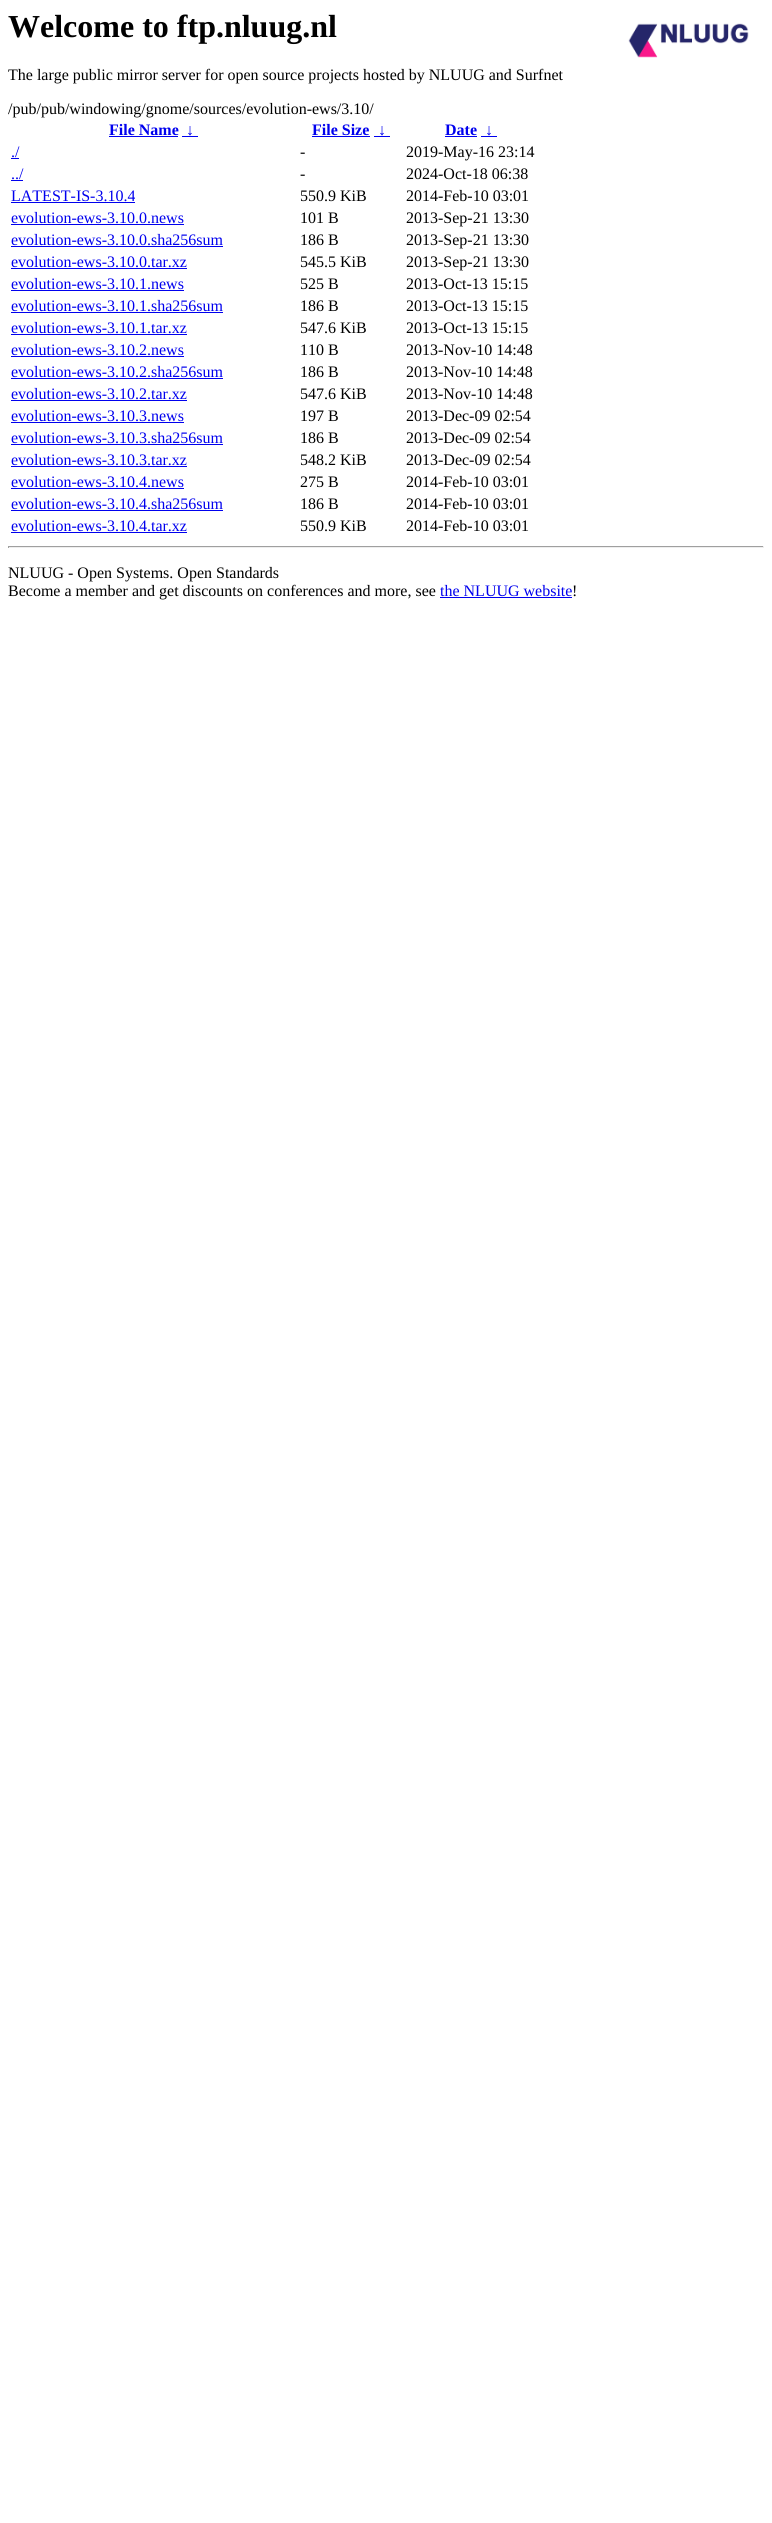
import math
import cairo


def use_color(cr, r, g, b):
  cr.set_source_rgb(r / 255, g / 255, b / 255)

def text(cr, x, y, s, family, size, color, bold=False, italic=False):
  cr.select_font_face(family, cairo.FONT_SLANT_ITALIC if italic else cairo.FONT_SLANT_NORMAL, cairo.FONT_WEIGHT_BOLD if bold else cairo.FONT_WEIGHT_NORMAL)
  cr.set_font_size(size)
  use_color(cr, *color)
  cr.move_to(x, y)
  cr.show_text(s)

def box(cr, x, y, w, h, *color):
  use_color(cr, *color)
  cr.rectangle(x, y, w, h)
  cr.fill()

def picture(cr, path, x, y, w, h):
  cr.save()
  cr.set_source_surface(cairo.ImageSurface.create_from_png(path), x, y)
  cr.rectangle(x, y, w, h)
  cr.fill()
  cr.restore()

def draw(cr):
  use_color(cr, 255, 255, 255)
  cr.paint()
  picture(cr, "img_01.png", 628, 23, 121, 35)
  box(cr, 109, 136, 69, 1, 0, 0, 238)
  box(cr, 182, 136, 16, 1, 0, 0, 238)
  box(cr, 312, 136, 58, 1, 0, 0, 238)
  box(cr, 374, 136, 16, 1, 0, 0, 238)
  box(cr, 445, 136, 32, 1, 0, 0, 238)
  box(cr, 481, 136, 16, 1, 0, 0, 238)
  box(cr, 11, 158, 8, 1, 0, 0, 238)
  box(cr, 11, 180, 12, 1, 0, 0, 238)
  box(cr, 11, 202, 124, 1, 0, 0, 238)
  box(cr, 11, 224, 173, 1, 0, 0, 238)
  box(cr, 11, 246, 212, 1, 0, 0, 238)
  box(cr, 11, 268, 176, 1, 0, 0, 238)
  box(cr, 11, 290, 173, 1, 0, 0, 238)
  box(cr, 11, 312, 212, 1, 0, 0, 238)
  box(cr, 11, 334, 176, 1, 0, 0, 238)
  box(cr, 11, 356, 173, 1, 0, 0, 238)
  box(cr, 11, 378, 212, 1, 0, 0, 238)
  box(cr, 11, 400, 176, 1, 0, 0, 238)
  box(cr, 11, 422, 173, 1, 0, 0, 238)
  box(cr, 11, 444, 212, 1, 0, 0, 238)
  box(cr, 11, 466, 176, 1, 0, 0, 238)
  box(cr, 11, 488, 173, 1, 0, 0, 238)
  box(cr, 11, 510, 212, 1, 0, 0, 238)
  box(cr, 11, 532, 176, 1, 0, 0, 238)
  box(cr, 8, 546, 756, 1, 159, 159, 159)
  box(cr, 763, 546, 1, 2, 238, 238, 238)
  box(cr, 8, 547, 756, 1, 238, 238, 238)
  box(cr, 8, 546, 1, 2, 159, 159, 159)
  box(cr, 440, 597, 132, 1, 0, 0, 238)
  text(cr, 8, 37, "Welcome to ftp.nluug.nl", "Liberation Serif", 32, (0, 0, 0), bold=True)
  text(cr, 8, 80, "The large public mirror server for open source projects hosted by NLUUG and Surfnet", "Liberation Serif", 16, (0, 0, 0))
  text(cr, 8, 114, "/pub/pub/windowing/gnome/sources/evolution-ews/3.10/", "Liberation Serif", 16, (0, 0, 0))
  text(cr, 109, 135, "File Name", "Liberation Serif", 16, (0, 0, 238), bold=True)
  text(cr, 186, 135, "↓", "Liberation Serif", 16, (0, 0, 238), bold=True)
  text(cr, 312, 135, "File Size", "Liberation Serif", 16, (0, 0, 238), bold=True)
  text(cr, 378, 135, "↓", "Liberation Serif", 16, (0, 0, 238), bold=True)
  text(cr, 445, 135, "Date", "Liberation Serif", 16, (0, 0, 238), bold=True)
  text(cr, 485, 135, "↓", "Liberation Serif", 16, (0, 0, 238), bold=True)
  text(cr, 11, 157, "./", "Liberation Serif", 16, (0, 0, 238))
  text(cr, 300, 157, "-", "Liberation Serif", 16, (0, 0, 0))
  text(cr, 406, 157, "2019-May-16 23:14", "Liberation Serif", 16, (0, 0, 0))
  text(cr, 11, 179, "../", "Liberation Serif", 16, (0, 0, 238))
  text(cr, 300, 179, "-", "Liberation Serif", 16, (0, 0, 0))
  text(cr, 406, 179, "2024-Oct-18 06:38", "Liberation Serif", 16, (0, 0, 0))
  text(cr, 11, 201, "LATEST-IS-3.10.4", "Liberation Serif", 16, (0, 0, 238))
  text(cr, 300, 201, "550.9 KiB", "Liberation Serif", 16, (0, 0, 0))
  text(cr, 406, 201, "2014-Feb-10 03:01", "Liberation Serif", 16, (0, 0, 0))
  text(cr, 11, 223, "evolution-ews-3.10.0.news", "Liberation Serif", 16, (0, 0, 238))
  text(cr, 300, 223, "101 B", "Liberation Serif", 16, (0, 0, 0))
  text(cr, 406, 223, "2013-Sep-21 13:30", "Liberation Serif", 16, (0, 0, 0))
  text(cr, 11, 245, "evolution-ews-3.10.0.sha256sum", "Liberation Serif", 16, (0, 0, 238))
  text(cr, 300, 245, "186 B", "Liberation Serif", 16, (0, 0, 0))
  text(cr, 406, 245, "2013-Sep-21 13:30", "Liberation Serif", 16, (0, 0, 0))
  text(cr, 11, 267, "evolution-ews-3.10.0.tar.xz", "Liberation Serif", 16, (0, 0, 238))
  text(cr, 300, 267, "545.5 KiB", "Liberation Serif", 16, (0, 0, 0))
  text(cr, 406, 267, "2013-Sep-21 13:30", "Liberation Serif", 16, (0, 0, 0))
  text(cr, 11, 289, "evolution-ews-3.10.1.news", "Liberation Serif", 16, (0, 0, 238))
  text(cr, 300, 289, "525 B", "Liberation Serif", 16, (0, 0, 0))
  text(cr, 406, 289, "2013-Oct-13 15:15", "Liberation Serif", 16, (0, 0, 0))
  text(cr, 11, 311, "evolution-ews-3.10.1.sha256sum", "Liberation Serif", 16, (0, 0, 238))
  text(cr, 300, 311, "186 B", "Liberation Serif", 16, (0, 0, 0))
  text(cr, 406, 311, "2013-Oct-13 15:15", "Liberation Serif", 16, (0, 0, 0))
  text(cr, 11, 333, "evolution-ews-3.10.1.tar.xz", "Liberation Serif", 16, (0, 0, 238))
  text(cr, 300, 333, "547.6 KiB", "Liberation Serif", 16, (0, 0, 0))
  text(cr, 406, 333, "2013-Oct-13 15:15", "Liberation Serif", 16, (0, 0, 0))
  text(cr, 11, 355, "evolution-ews-3.10.2.news", "Liberation Serif", 16, (0, 0, 238))
  text(cr, 300, 355, "110 B", "Liberation Serif", 16, (0, 0, 0))
  text(cr, 406, 355, "2013-Nov-10 14:48", "Liberation Serif", 16, (0, 0, 0))
  text(cr, 11, 377, "evolution-ews-3.10.2.sha256sum", "Liberation Serif", 16, (0, 0, 238))
  text(cr, 300, 377, "186 B", "Liberation Serif", 16, (0, 0, 0))
  text(cr, 406, 377, "2013-Nov-10 14:48", "Liberation Serif", 16, (0, 0, 0))
  text(cr, 11, 399, "evolution-ews-3.10.2.tar.xz", "Liberation Serif", 16, (0, 0, 238))
  text(cr, 300, 399, "547.6 KiB", "Liberation Serif", 16, (0, 0, 0))
  text(cr, 406, 399, "2013-Nov-10 14:48", "Liberation Serif", 16, (0, 0, 0))
  text(cr, 11, 421, "evolution-ews-3.10.3.news", "Liberation Serif", 16, (0, 0, 238))
  text(cr, 300, 421, "197 B", "Liberation Serif", 16, (0, 0, 0))
  text(cr, 406, 421, "2013-Dec-09 02:54", "Liberation Serif", 16, (0, 0, 0))
  text(cr, 11, 443, "evolution-ews-3.10.3.sha256sum", "Liberation Serif", 16, (0, 0, 238))
  text(cr, 300, 443, "186 B", "Liberation Serif", 16, (0, 0, 0))
  text(cr, 406, 443, "2013-Dec-09 02:54", "Liberation Serif", 16, (0, 0, 0))
  text(cr, 11, 465, "evolution-ews-3.10.3.tar.xz", "Liberation Serif", 16, (0, 0, 238))
  text(cr, 300, 465, "548.2 KiB", "Liberation Serif", 16, (0, 0, 0))
  text(cr, 406, 465, "2013-Dec-09 02:54", "Liberation Serif", 16, (0, 0, 0))
  text(cr, 11, 487, "evolution-ews-3.10.4.news", "Liberation Serif", 16, (0, 0, 238))
  text(cr, 300, 487, "275 B", "Liberation Serif", 16, (0, 0, 0))
  text(cr, 406, 487, "2014-Feb-10 03:01", "Liberation Serif", 16, (0, 0, 0))
  text(cr, 11, 509, "evolution-ews-3.10.4.sha256sum", "Liberation Serif", 16, (0, 0, 238))
  text(cr, 300, 509, "186 B", "Liberation Serif", 16, (0, 0, 0))
  text(cr, 406, 509, "2014-Feb-10 03:01", "Liberation Serif", 16, (0, 0, 0))
  text(cr, 11, 531, "evolution-ews-3.10.4.tar.xz", "Liberation Serif", 16, (0, 0, 238))
  text(cr, 300, 531, "550.9 KiB", "Liberation Serif", 16, (0, 0, 0))
  text(cr, 406, 531, "2014-Feb-10 03:01", "Liberation Serif", 16, (0, 0, 0))
  text(cr, 8, 578, "NLUUG - Open Systems. Open Standards", "Liberation Serif", 16, (0, 0, 0))
  text(cr, 8, 596, "Become a member and get discounts on conferences and more, see", "Liberation Serif", 16, (0, 0, 0))
  text(cr, 440, 596, "the NLUUG website", "Liberation Serif", 16, (0, 0, 238))
  text(cr, 572, 596, "!", "Liberation Serif", 16, (0, 0, 0))


surface = cairo.ImageSurface(cairo.FORMAT_RGB24, 772, 2523)
cr = cairo.Context(surface)
options = cairo.FontOptions()
options.set_hint_metrics(cairo.HINT_METRICS_OFF)
options.set_hint_style(cairo.HINT_STYLE_NONE)
cr.set_font_options(options)
cr.set_miter_limit(4)
draw(cr)
surface.write_to_png("out.png")
